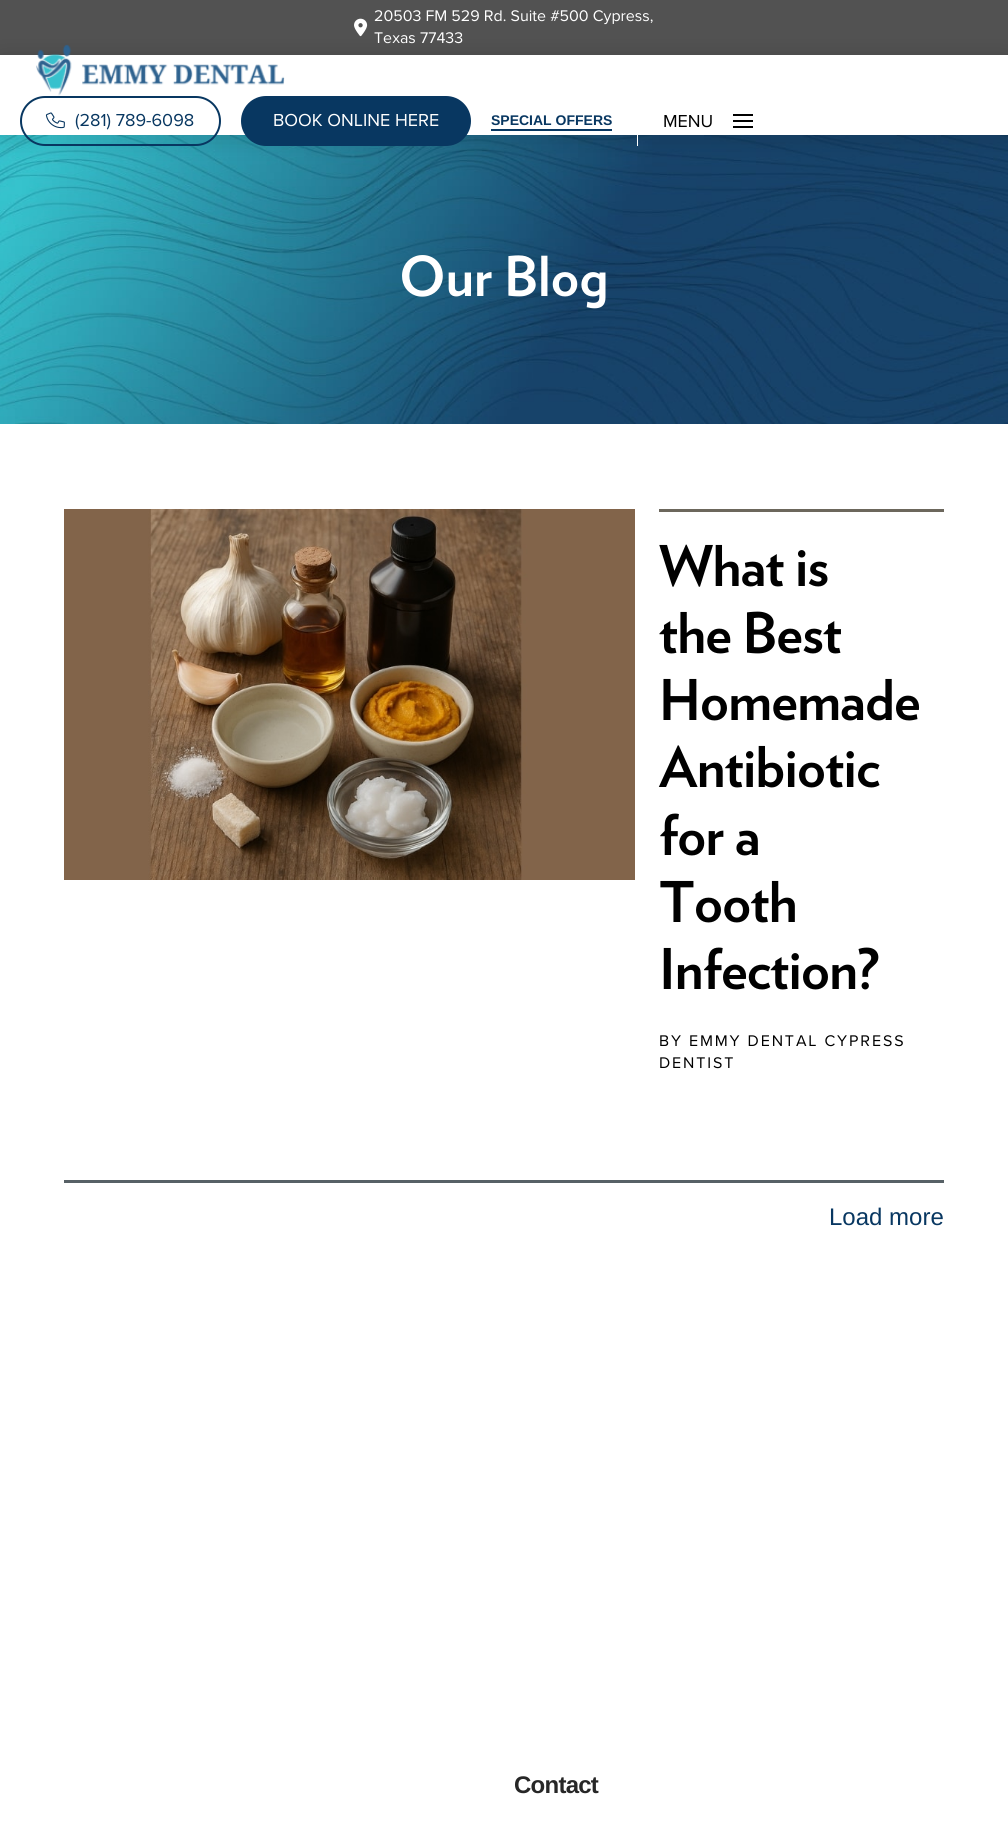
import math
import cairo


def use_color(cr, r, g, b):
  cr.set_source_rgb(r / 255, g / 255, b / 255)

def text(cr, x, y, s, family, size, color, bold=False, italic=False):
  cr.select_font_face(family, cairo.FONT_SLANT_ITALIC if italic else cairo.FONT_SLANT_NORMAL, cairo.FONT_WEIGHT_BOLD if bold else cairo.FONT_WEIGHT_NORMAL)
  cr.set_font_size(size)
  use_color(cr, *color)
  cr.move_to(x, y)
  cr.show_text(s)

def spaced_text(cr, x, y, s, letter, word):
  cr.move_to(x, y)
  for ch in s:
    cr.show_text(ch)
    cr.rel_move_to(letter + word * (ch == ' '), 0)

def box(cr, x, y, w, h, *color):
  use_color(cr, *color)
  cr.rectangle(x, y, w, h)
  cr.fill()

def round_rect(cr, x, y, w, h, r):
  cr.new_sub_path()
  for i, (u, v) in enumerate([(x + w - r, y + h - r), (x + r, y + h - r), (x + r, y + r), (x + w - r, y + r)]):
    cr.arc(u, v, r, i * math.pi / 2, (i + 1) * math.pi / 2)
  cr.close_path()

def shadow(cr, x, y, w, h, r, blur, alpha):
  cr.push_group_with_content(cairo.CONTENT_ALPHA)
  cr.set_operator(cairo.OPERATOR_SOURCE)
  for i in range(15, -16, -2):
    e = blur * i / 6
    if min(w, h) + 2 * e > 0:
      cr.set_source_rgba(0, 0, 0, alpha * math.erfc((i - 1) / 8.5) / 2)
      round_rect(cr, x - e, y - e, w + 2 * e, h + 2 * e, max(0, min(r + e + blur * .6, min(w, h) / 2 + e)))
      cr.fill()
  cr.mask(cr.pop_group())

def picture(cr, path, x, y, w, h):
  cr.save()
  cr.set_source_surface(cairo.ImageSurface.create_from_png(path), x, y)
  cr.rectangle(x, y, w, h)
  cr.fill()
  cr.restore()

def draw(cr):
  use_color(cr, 255, 255, 255)
  cr.paint()
  box(cr, 0, 0, 1008, 55, 82, 82, 82)
  picture(cr, "img_01.png", 354, 18, 14, 19)
  picture(cr, "img_04.png", 0, 135, 1008, 289)
  use_color(cr, 0, 0, 0)
  shadow(cr, 0, 58, 1008, 80, 0, 12.5, 0.15)
  box(cr, 0, 55, 1008, 80, 255, 255, 255)
  picture(cr, "img_02.png", 36, 44, 249, 52)
  round_rect(cr, 21, 97, 199, 48, 24)
  use_color(cr, 8, 55, 97)
  cr.stroke()
  picture(cr, "img_03.png", 45, 112, 20, 17)
  round_rect(cr, 241, 96, 230, 50, 25)
  cr.fill()
  box(cr, 491, 129, 121, 2, 8, 55, 97)
  box(cr, 637, 135, 1, 11, 255, 255, 255)
  box(cr, 733, 114, 20, 2, 0, 0, 0)
  box(cr, 733, 120, 20, 2, 0, 0, 0)
  box(cr, 733, 126, 20, 2, 0, 0, 0)
  picture(cr, "img_05.png", 64, 509, 571, 371)
  box(cr, 659, 509, 285, 3, 108, 103, 92)
  box(cr, 64, 1180, 880, 3, 87, 97, 102)
  text(cr, 374, 21, "20503 FM 529 Rd. Suite #500 Cypress,", "Proxima Nova", 16, (255, 255, 255))
  text(cr, 374, 43, "Texas 77433", "Proxima Nova", 16, (255, 255, 255))
  text(cr, 75, 126, "(281) 789-6098", "Proxima Nova", 18, (8, 55, 97))
  text(cr, 273, 126, "BOOK ONLINE HERE", "Proxima Nova", 18, (255, 255, 255))
  text(cr, 491, 125, "SPECIAL OFFERS", "Liberation Sans", 14, (8, 55, 97), bold=True)
  text(cr, 663, 127, "MENU", "Proxima Nova", 18, (0, 0, 0))
  text(cr, 399, 296, "Our Blog", "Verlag", 55, (255, 255, 255), bold=True)
  cr.set_font_size(56)
  use_color(cr, 0, 0, 0)
  spaced_text(cr, 659, 586, "What is", -0.75, 0)
  spaced_text(cr, 659, 653, "the Best", -0.75, 0)
  spaced_text(cr, 659, 720, "Homemade", -0.75, 0)
  spaced_text(cr, 659, 787, "Antibiotic", -0.75, 0)
  spaced_text(cr, 659, 855, "for a", -0.75, 0)
  spaced_text(cr, 659, 922, "Tooth", -0.75, 0)
  spaced_text(cr, 659, 989, "Infection?", -0.75, 0)
  cr.select_font_face("Proxima Nova")
  cr.set_font_size(16)
  spaced_text(cr, 659, 1046, "BY EMMY DENTAL CYPRESS", 1.9, 0)
  spaced_text(cr, 659, 1068, "DENTIST", 1.9, 0)
  text(cr, 829, 1225, "Load more", "Liberation Sans", 24, (8, 55, 97))
  cr.select_font_face("Liberation Sans", cairo.FONT_SLANT_NORMAL, cairo.FONT_WEIGHT_BOLD)
  use_color(cr, 39, 39, 39)
  spaced_text(cr, 514, 1793, "Contact", -0.75, 0)


surface = cairo.ImageSurface(cairo.FORMAT_RGB24, 1008, 1824)
cr = cairo.Context(surface)
options = cairo.FontOptions()
options.set_hint_metrics(cairo.HINT_METRICS_OFF)
options.set_hint_style(cairo.HINT_STYLE_NONE)
cr.set_font_options(options)
cr.set_miter_limit(4)
draw(cr)
surface.write_to_png("out.png")
